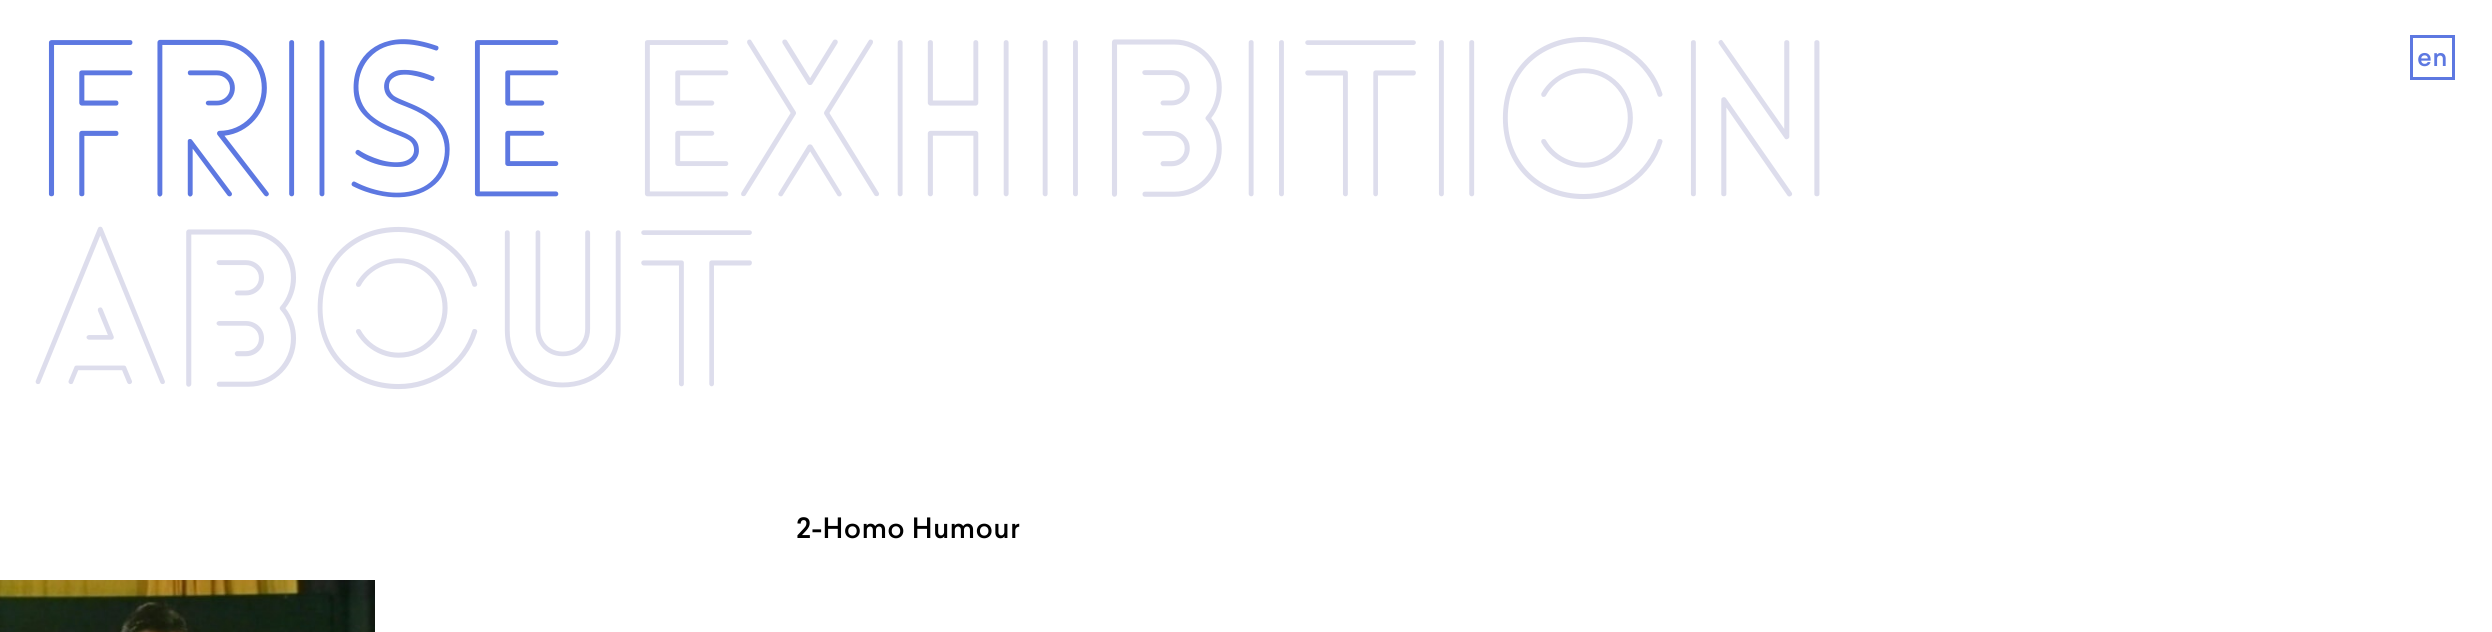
import math
import cairo


def use_color(cr, r, g, b):
  cr.set_source_rgb(r / 255, g / 255, b / 255)

def text(cr, x, y, s, family, size, color, bold=False, italic=False):
  cr.select_font_face(family, cairo.FONT_SLANT_ITALIC if italic else cairo.FONT_SLANT_NORMAL, cairo.FONT_WEIGHT_BOLD if bold else cairo.FONT_WEIGHT_NORMAL)
  cr.set_font_size(size)
  use_color(cr, *color)
  cr.move_to(x, y)
  cr.show_text(s)

def spaced_text(cr, x, y, s, letter, word):
  cr.move_to(x, y)
  for ch in s:
    cr.show_text(ch)
    cr.rel_move_to(letter + word * (ch == ' '), 0)

def picture(cr, path, x, y, w, h):
  cr.save()
  cr.set_source_surface(cairo.ImageSurface.create_from_png(path), x, y)
  cr.rectangle(x, y, w, h)
  cr.fill()
  cr.restore()

def draw(cr):
  use_color(cr, 255, 255, 255)
  cr.paint()
  cr.rectangle(2411.5, 36.5, 42, 42)
  use_color(cr, 93, 120, 225)
  cr.set_line_width(3)
  cr.stroke()
  picture(cr, "img_01.png", 0, 580, 375, 52)
  text(cr, 32, 194, "Frise", "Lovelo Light", 212, (93, 120, 225))
  text(cr, 628, 194, "Exhibition", "Lovelo Light", 212, (221, 221, 236))
  text(cr, 32, 384, "About", "Lovelo Light", 212, (221, 221, 236))
  cr.select_font_face("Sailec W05 Medium")
  cr.set_font_size(25)
  use_color(cr, 93, 120, 225)
  spaced_text(cr, 2417, 66, "en", 0.3, 0)
  cr.set_font_size(27.5)
  use_color(cr, 0, 0, 0)
  spaced_text(cr, 796, 538, "2-Homo Humour", 0.3, 0)


surface = cairo.ImageSurface(cairo.FORMAT_RGB24, 2492, 632)
cr = cairo.Context(surface)
options = cairo.FontOptions()
options.set_hint_metrics(cairo.HINT_METRICS_OFF)
options.set_hint_style(cairo.HINT_STYLE_NONE)
cr.set_font_options(options)
cr.set_miter_limit(4)
draw(cr)
surface.write_to_png("out.png")
